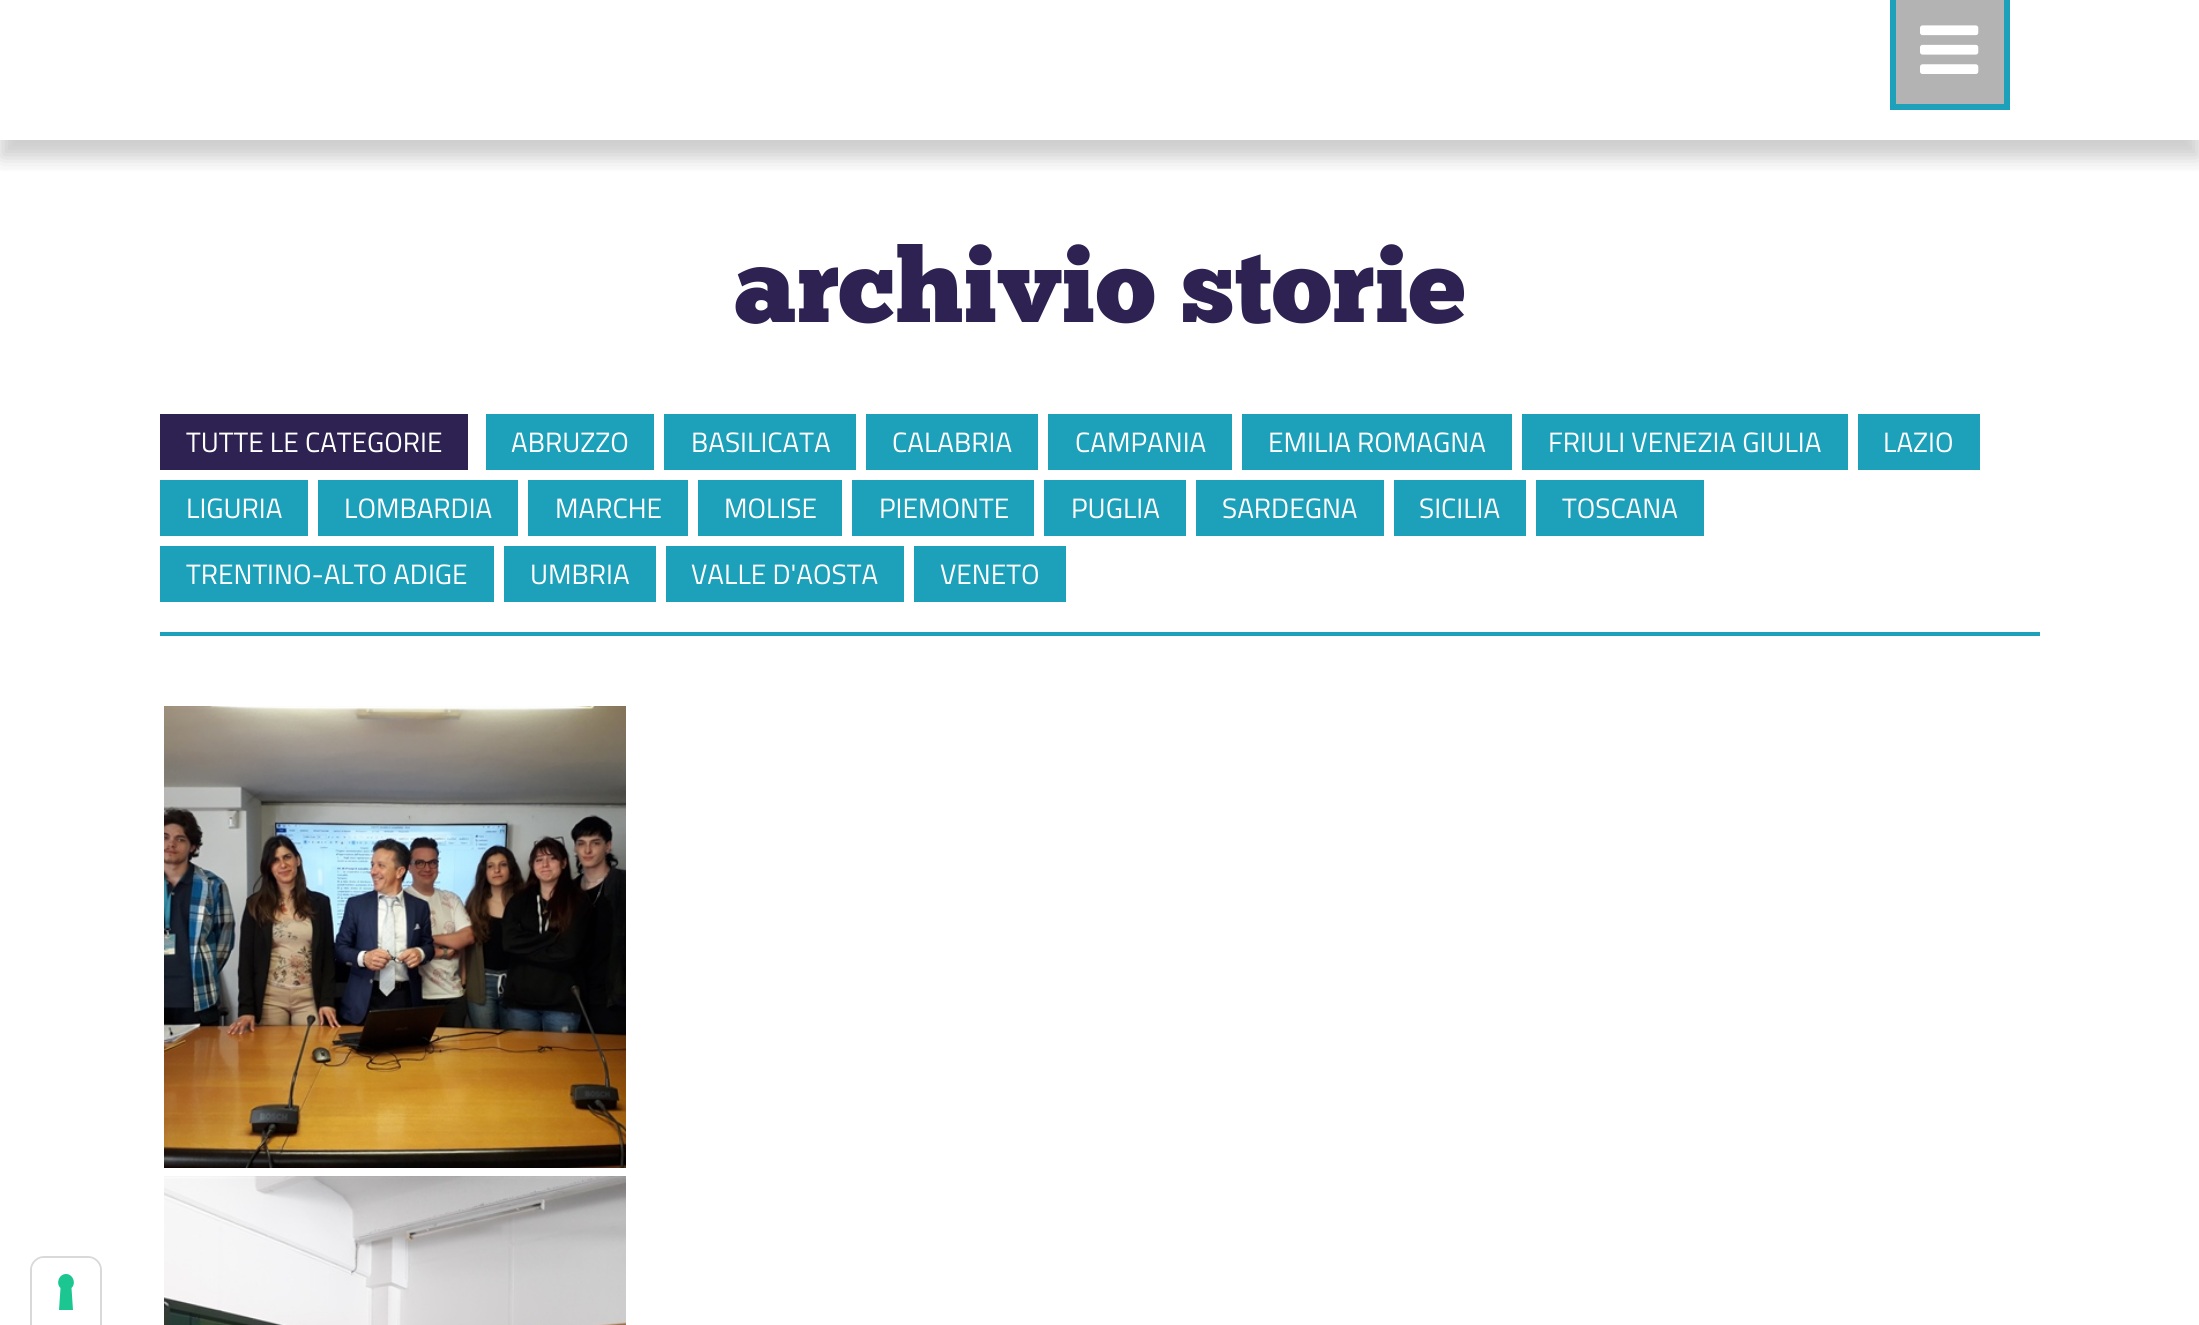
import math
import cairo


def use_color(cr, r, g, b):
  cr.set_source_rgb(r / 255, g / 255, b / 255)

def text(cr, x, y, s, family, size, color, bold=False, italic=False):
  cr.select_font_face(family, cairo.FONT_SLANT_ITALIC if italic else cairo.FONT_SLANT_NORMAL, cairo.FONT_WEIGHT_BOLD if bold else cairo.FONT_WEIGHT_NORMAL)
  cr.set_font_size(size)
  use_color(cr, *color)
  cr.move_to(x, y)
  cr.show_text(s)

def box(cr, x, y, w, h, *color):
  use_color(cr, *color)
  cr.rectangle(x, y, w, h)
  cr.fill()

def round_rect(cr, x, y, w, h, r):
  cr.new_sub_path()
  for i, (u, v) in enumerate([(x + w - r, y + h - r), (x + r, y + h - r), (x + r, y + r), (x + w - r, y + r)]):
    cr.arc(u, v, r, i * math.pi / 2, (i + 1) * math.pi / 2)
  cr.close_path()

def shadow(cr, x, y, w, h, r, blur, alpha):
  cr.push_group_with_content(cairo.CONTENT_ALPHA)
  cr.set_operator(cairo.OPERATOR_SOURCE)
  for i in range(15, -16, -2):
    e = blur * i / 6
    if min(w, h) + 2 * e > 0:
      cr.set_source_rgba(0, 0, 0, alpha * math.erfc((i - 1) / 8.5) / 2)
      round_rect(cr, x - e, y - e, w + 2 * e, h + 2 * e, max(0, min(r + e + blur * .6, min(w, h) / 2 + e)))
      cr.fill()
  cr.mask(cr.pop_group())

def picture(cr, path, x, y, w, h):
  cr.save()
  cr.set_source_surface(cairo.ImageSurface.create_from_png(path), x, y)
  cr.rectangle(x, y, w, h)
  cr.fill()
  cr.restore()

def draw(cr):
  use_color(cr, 255, 255, 255)
  cr.paint()
  cr.save()
  cr.rectangle(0, 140, 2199, 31)
  cr.clip()
  use_color(cr, 0, 0, 0)
  shadow(cr, 0, 18, 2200, 140, 0, 10, 0.2)
  cr.restore()
  use_color(cr, 179, 179, 179)
  cr.rectangle(1893, -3, 114, 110)
  cr.fill_preserve()
  use_color(cr, 29, 160, 186)
  cr.set_line_width(6)
  cr.stroke()
  picture(cr, "img_01.png", 1920, 25, 59, 49)
  box(cr, 160, 414, 308, 56, 46, 34, 82)
  box(cr, 486, 414, 168, 56, 29, 160, 186)
  box(cr, 664, 414, 192, 56, 29, 160, 186)
  box(cr, 866, 414, 172, 56, 29, 160, 186)
  box(cr, 1048, 414, 184, 56, 29, 160, 186)
  box(cr, 1242, 414, 270, 56, 29, 160, 186)
  box(cr, 1522, 414, 326, 56, 29, 160, 186)
  box(cr, 1858, 414, 122, 56, 29, 160, 186)
  box(cr, 160, 480, 148, 56, 29, 160, 186)
  box(cr, 318, 480, 200, 56, 29, 160, 186)
  box(cr, 528, 480, 160, 56, 29, 160, 186)
  box(cr, 698, 480, 144, 56, 29, 160, 186)
  box(cr, 852, 480, 182, 56, 29, 160, 186)
  box(cr, 1044, 480, 142, 56, 29, 160, 186)
  box(cr, 1196, 480, 188, 56, 29, 160, 186)
  box(cr, 1394, 480, 132, 56, 29, 160, 186)
  box(cr, 1536, 480, 168, 56, 29, 160, 186)
  box(cr, 160, 546, 334, 56, 29, 160, 186)
  box(cr, 504, 546, 152, 56, 29, 160, 186)
  box(cr, 666, 546, 238, 56, 29, 160, 186)
  box(cr, 914, 546, 152, 56, 29, 160, 186)
  box(cr, 160, 632, 1880, 4, 29, 160, 186)
  picture(cr, "img_02.png", 164, 706, 462, 462)
  picture(cr, "img_03.png", 164, 1176, 462, 149)
  cr.new_path()
  cr.move_to(44, 1257)
  cr.line_to(88, 1257)
  cr.curve_to(95, 1257, 101, 1263, 101, 1270)
  cr.line_to(101, 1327)
  cr.line_to(31, 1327)
  cr.line_to(31, 1270)
  cr.curve_to(31, 1263, 37, 1257, 44, 1257)
  cr.close_path()
  use_color(cr, 217, 217, 217)
  cr.set_line_width(2)
  cr.stroke()
  use_color(cr, 255, 255, 255)
  cr.new_path()
  cr.move_to(44, 1258)
  cr.line_to(88, 1258)
  cr.curve_to(94.5, 1258, 100, 1263.5, 100, 1270)
  cr.line_to(100, 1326)
  cr.line_to(32, 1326)
  cr.line_to(32, 1270)
  cr.curve_to(32, 1263.5, 37.5, 1258, 44, 1258)
  cr.close_path()
  cr.fill()
  use_color(cr, 28, 198, 145)
  cr.set_fill_rule(cairo.FILL_RULE_EVEN_ODD)
  cr.new_path()
  cr.move_to(66, 1274)
  cr.curve_to(73, 1274, 76.5, 1283.5, 71.5, 1288)
  cr.line_to(73, 1310)
  cr.line_to(59, 1310)
  cr.line_to(60.5, 1288)
  cr.curve_to(55.5, 1283.5, 59, 1274, 66, 1274)
  cr.close_path()
  cr.fill()
  text(cr, 734, 322, "archivio storie", "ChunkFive", 104, (46, 34, 82))
  text(cr, 186, 452, "TUTTE LE CATEGORIE", "Titillium Web", 28, (255, 255, 255))
  text(cr, 511, 452, "ABRUZZO", "Titillium Web", 28, (255, 255, 255))
  text(cr, 691, 452, "BASILICATA", "Titillium Web", 28, (255, 255, 255))
  text(cr, 892, 452, "CALABRIA", "Titillium Web", 28, (255, 255, 255))
  text(cr, 1075, 452, "CAMPANIA", "Titillium Web", 28, (255, 255, 255))
  text(cr, 1268, 452, "EMILIA ROMAGNA", "Titillium Web", 28, (255, 255, 255))
  text(cr, 1548, 452, "FRIULI VENEZIA GIULIA", "Titillium Web", 28, (255, 255, 255))
  text(cr, 1883, 452, "LAZIO", "Titillium Web", 28, (255, 255, 255))
  text(cr, 186, 518, "LIGURIA", "Titillium Web", 28, (255, 255, 255))
  text(cr, 344, 518, "LOMBARDIA", "Titillium Web", 28, (255, 255, 255))
  text(cr, 555, 518, "MARCHE", "Titillium Web", 28, (255, 255, 255))
  text(cr, 724, 518, "MOLISE", "Titillium Web", 28, (255, 255, 255))
  text(cr, 879, 518, "PIEMONTE", "Titillium Web", 28, (255, 255, 255))
  text(cr, 1071, 518, "PUGLIA", "Titillium Web", 28, (255, 255, 255))
  text(cr, 1222, 518, "SARDEGNA", "Titillium Web", 28, (255, 255, 255))
  text(cr, 1419, 518, "SICILIA", "Titillium Web", 28, (255, 255, 255))
  text(cr, 1562, 518, "TOSCANA", "Titillium Web", 28, (255, 255, 255))
  text(cr, 186, 584, "TRENTINO-ALTO ADIGE", "Titillium Web", 28, (255, 255, 255))
  text(cr, 530, 584, "UMBRIA", "Titillium Web", 28, (255, 255, 255))
  text(cr, 691, 584, "VALLE D'AOSTA", "Titillium Web", 28, (255, 255, 255))
  text(cr, 940, 584, "VENETO", "Titillium Web", 28, (255, 255, 255))


surface = cairo.ImageSurface(cairo.FORMAT_RGB24, 2199, 1325)
cr = cairo.Context(surface)
options = cairo.FontOptions()
options.set_hint_metrics(cairo.HINT_METRICS_OFF)
options.set_hint_style(cairo.HINT_STYLE_NONE)
cr.set_font_options(options)
cr.set_miter_limit(4)
draw(cr)
surface.write_to_png("out.png")
